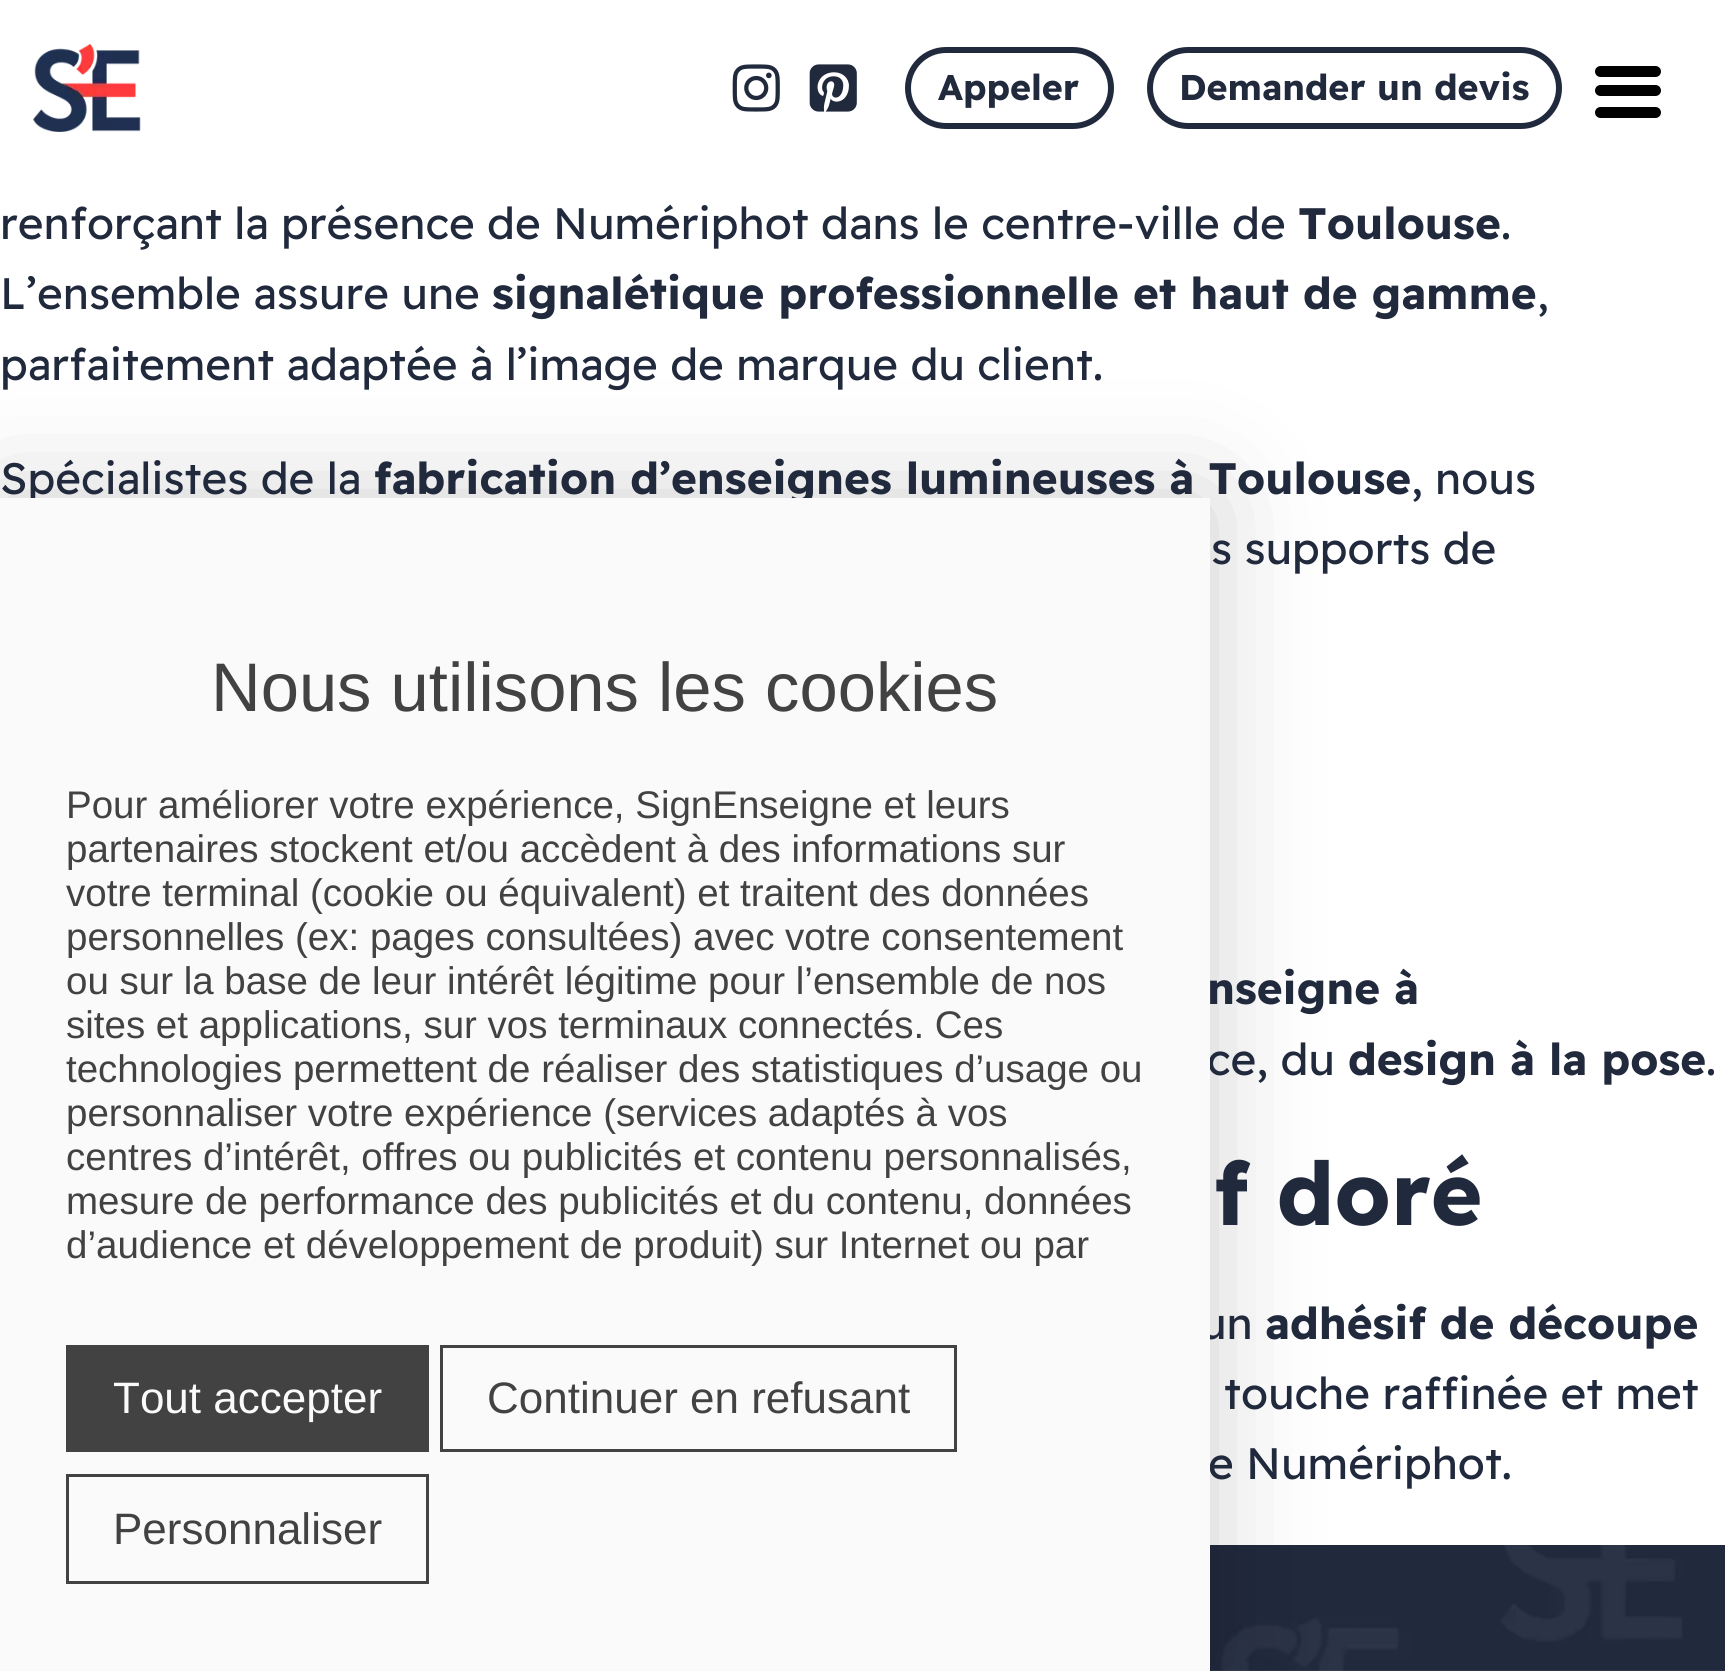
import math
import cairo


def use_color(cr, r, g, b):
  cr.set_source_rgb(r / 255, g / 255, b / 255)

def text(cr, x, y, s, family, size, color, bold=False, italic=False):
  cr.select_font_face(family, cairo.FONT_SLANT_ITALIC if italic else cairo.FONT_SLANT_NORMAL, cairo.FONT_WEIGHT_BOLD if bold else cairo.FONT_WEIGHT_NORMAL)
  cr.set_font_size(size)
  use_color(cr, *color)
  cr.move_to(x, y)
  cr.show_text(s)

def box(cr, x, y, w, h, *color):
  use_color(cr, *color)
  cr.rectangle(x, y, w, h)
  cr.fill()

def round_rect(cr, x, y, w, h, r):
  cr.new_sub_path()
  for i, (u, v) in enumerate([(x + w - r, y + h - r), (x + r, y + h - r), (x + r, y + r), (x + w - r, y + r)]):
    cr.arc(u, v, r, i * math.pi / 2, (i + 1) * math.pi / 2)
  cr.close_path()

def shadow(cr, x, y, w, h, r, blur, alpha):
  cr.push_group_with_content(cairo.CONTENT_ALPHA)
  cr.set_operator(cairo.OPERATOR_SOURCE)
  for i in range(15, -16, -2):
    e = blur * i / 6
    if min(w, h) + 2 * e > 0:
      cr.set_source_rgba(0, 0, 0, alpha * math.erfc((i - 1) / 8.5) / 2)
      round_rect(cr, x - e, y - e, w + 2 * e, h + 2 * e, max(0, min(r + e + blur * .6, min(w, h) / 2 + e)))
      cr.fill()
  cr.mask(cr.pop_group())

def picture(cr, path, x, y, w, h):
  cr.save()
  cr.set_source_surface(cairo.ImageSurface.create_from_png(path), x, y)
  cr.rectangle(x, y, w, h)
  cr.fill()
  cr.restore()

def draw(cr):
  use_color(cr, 255, 255, 255)
  cr.paint()
  picture(cr, "img_01.png", 33, 44, 108, 88)
  picture(cr, "img_02.png", 732, 64, 48, 48)
  picture(cr, "img_03.png", 809, 64, 48, 48)
  round_rect(cr, 908, 50, 203, 76, 38)
  use_color(cr, 33, 41, 61)
  cr.set_line_width(6)
  cr.stroke()
  round_rect(cr, 1150, 50, 409, 76, 38)
  cr.stroke()
  use_color(cr, 0, 0, 0)
  round_rect(cr, 1595, 66, 66, 11, 5.5)
  cr.fill()
  round_rect(cr, 1595, 85, 66, 11, 5.5)
  cr.fill()
  round_rect(cr, 1595, 107, 66, 11, 5.5)
  cr.fill()
  picture(cr, "img_04.png", 1210, 1545, 515, 126)
  use_color(cr, 0, 0, 0)
  shadow(cr, 0, 498, 1210, 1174, 0, 55, 0.2)
  text(cr, 938, 100, "Appeler", "Readex Pro", 35.75, (33, 41, 61), bold=True)
  text(cr, 1179, 100, "Demander un devis", "Readex Pro", 35.75, (33, 41, 61), bold=True)
  text(cr, 0, 239, "renforçant la présence de Numériphot dans le centre-ville de", "Readex Pro", 44, (33, 41, 61))
  text(cr, 1298, 239, "Toulouse", "Readex Pro", 44, (33, 41, 61), bold=True)
  text(cr, 1501, 239, ".", "Readex Pro", 44, (33, 41, 61))
  text(cr, 0, 309, "L’ensemble assure une", "Readex Pro", 44, (33, 41, 61))
  text(cr, 492, 309, "signalétique professionnelle et haut de gamme", "Readex Pro", 44, (33, 41, 61), bold=True)
  text(cr, 1537, 309, ",", "Readex Pro", 44, (33, 41, 61))
  text(cr, 0, 380, "parfaitement adaptée à l’image de marque du client.", "Readex Pro", 44, (33, 41, 61))
  text(cr, 0, 494, "Spécialistes de la", "Readex Pro", 44, (33, 41, 61))
  text(cr, 374, 494, "fabrication d’enseignes lumineuses à Toulouse", "Readex Pro", 44, (33, 41, 61), bold=True)
  text(cr, 1411, 494, ", nous", "Readex Pro", 44, (33, 41, 61))
  text(cr, 1211, 564, "s supports de", "Readex Pro", 44, (33, 41, 61))
  text(cr, 1207, 1004, "nseigne à", "Readex Pro", 44, (33, 41, 61), bold=True)
  text(cr, 1207, 1075, "ce, du", "Readex Pro", 44, (33, 41, 61))
  text(cr, 1348, 1075, "design à la pose", "Readex Pro", 44, (33, 41, 61), bold=True)
  text(cr, 1706, 1075, ".", "Readex Pro", 44, (33, 41, 61))
  text(cr, 1214, 1225, "f doré", "Readex Pro", 88, (33, 41, 61), bold=True)
  text(cr, 1200, 1339, "un", "Readex Pro", 44, (33, 41, 61))
  text(cr, 1265, 1339, "adhésif de découpe", "Readex Pro", 44, (33, 41, 61), bold=True)
  text(cr, 1224, 1409, "touche raffinée et met", "Readex Pro", 44, (33, 41, 61))
  text(cr, 1208, 1479, "e Numériphot.", "Readex Pro", 44, (33, 41, 61))
  box(cr, 0, 498, 1210, 1173, 250, 250, 250)
  text(cr, 211, 711, "Nous utilisons les cookies", "Liberation Sans", 68.75, (66, 66, 66))
  text(cr, 66, 818, "Pour améliorer votre expérience, SignEnseigne et leurs", "Liberation Sans", 38.5, (66, 66, 66))
  text(cr, 66, 862, "partenaires stockent et/ou accèdent à des informations sur", "Liberation Sans", 38.5, (66, 66, 66))
  text(cr, 66, 906, "votre terminal (cookie ou équivalent) et traitent des données", "Liberation Sans", 38.5, (66, 66, 66))
  text(cr, 66, 950, "personnelles (ex: pages consultées) avec votre consentement", "Liberation Sans", 38.5, (66, 66, 66))
  text(cr, 66, 994, "ou sur la base de leur intérêt légitime pour l’ensemble de nos", "Liberation Sans", 38.5, (66, 66, 66))
  text(cr, 66, 1038, "sites et applications, sur vos terminaux connectés. Ces", "Liberation Sans", 38.5, (66, 66, 66))
  text(cr, 66, 1082, "technologies permettent de réaliser des statistiques d’usage ou", "Liberation Sans", 38.5, (66, 66, 66))
  text(cr, 66, 1126, "personnaliser votre expérience (services adaptés à vos", "Liberation Sans", 38.5, (66, 66, 66))
  text(cr, 66, 1170, "centres d’intérêt, offres ou publicités et contenu personnalisés,", "Liberation Sans", 38.5, (66, 66, 66))
  text(cr, 66, 1214, "mesure de performance des publicités et du contenu, données", "Liberation Sans", 38.5, (66, 66, 66))
  text(cr, 66, 1258, "d’audience et développement de produit) sur Internet ou par", "Liberation Sans", 38.5, (66, 66, 66))
  box(cr, 66, 1345, 363, 107, 66, 66, 66)
  text(cr, 113, 1413, "Tout accepter", "Liberation Sans", 44, (250, 250, 250))
  cr.rectangle(441.5, 1346.5, 514, 104)
  use_color(cr, 66, 66, 66)
  cr.set_line_width(3)
  cr.stroke()
  text(cr, 487, 1413, "Continuer en refusant", "Liberation Sans", 44, (66, 66, 66))
  cr.rectangle(67.5, 1475.5, 360, 107)
  cr.stroke()
  text(cr, 113, 1544, "Personnaliser", "Liberation Sans", 44, (66, 66, 66))


surface = cairo.ImageSurface(cairo.FORMAT_RGB24, 1725, 1671)
cr = cairo.Context(surface)
options = cairo.FontOptions()
options.set_hint_metrics(cairo.HINT_METRICS_OFF)
options.set_hint_style(cairo.HINT_STYLE_NONE)
cr.set_font_options(options)
cr.set_miter_limit(4)
draw(cr)
surface.write_to_png("out.png")
